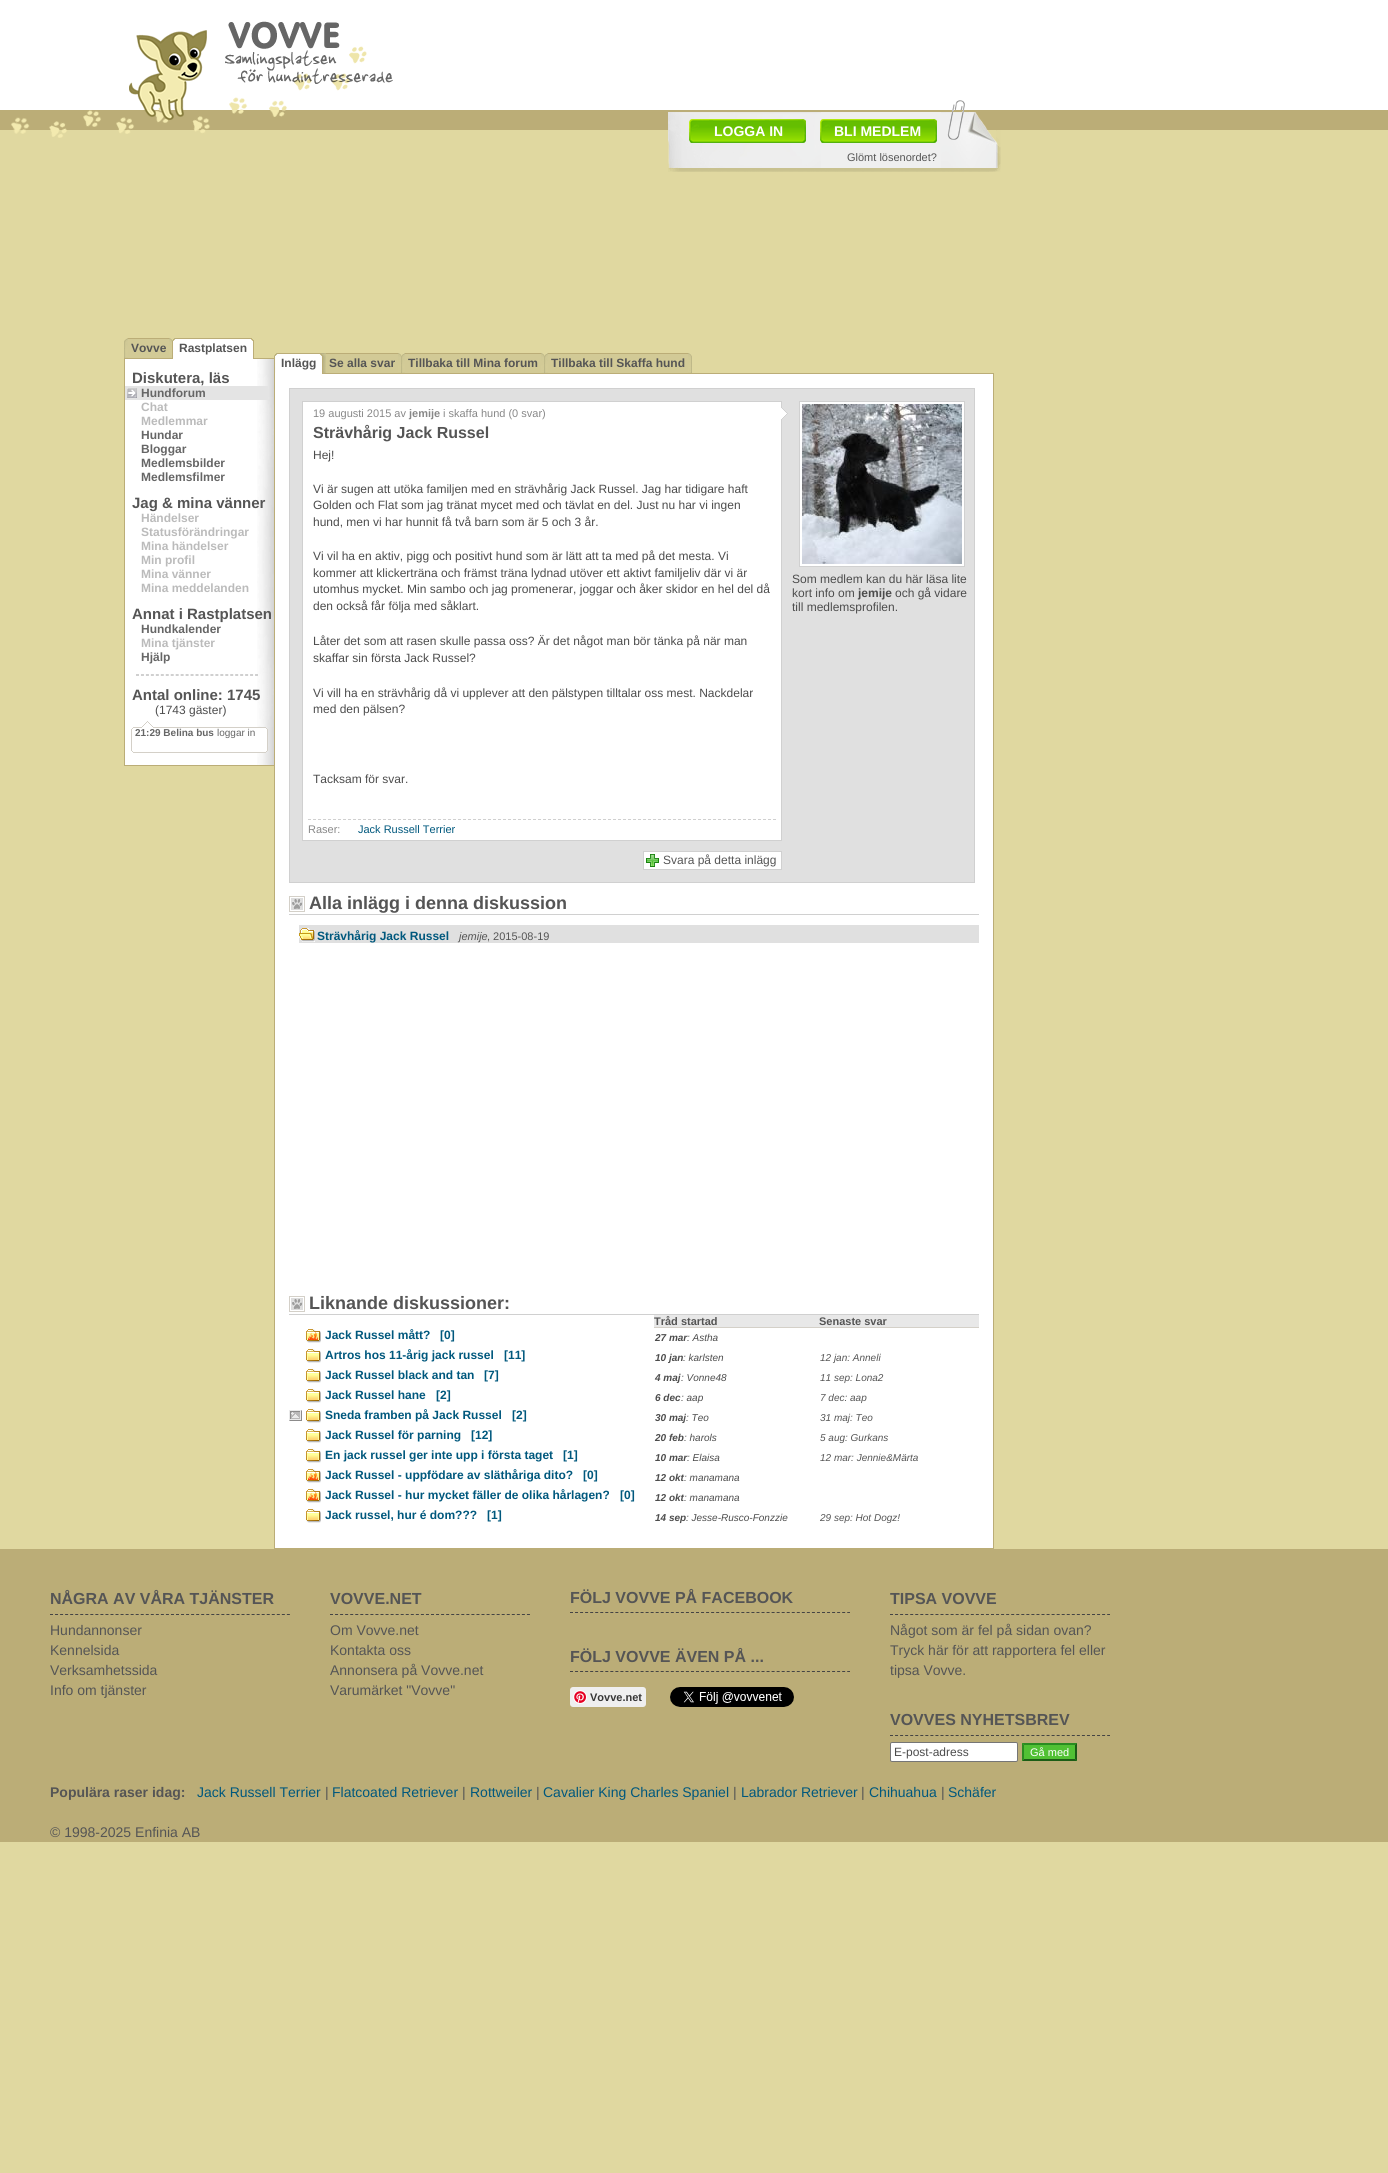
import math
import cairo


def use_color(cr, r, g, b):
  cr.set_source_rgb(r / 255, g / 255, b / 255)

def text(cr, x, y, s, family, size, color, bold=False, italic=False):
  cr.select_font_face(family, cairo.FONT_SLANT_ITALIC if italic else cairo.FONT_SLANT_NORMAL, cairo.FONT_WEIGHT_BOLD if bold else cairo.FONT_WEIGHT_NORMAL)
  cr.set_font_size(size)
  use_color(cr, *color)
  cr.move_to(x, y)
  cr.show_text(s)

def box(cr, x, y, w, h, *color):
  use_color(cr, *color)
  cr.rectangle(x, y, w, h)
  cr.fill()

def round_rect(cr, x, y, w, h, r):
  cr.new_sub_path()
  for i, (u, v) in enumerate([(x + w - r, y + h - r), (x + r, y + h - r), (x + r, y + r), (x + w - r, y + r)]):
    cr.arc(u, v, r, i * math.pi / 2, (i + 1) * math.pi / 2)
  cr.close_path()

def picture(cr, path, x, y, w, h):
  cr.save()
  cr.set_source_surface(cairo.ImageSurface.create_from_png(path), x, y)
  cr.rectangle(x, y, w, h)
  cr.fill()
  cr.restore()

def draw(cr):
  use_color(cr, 224, 216, 160)
  cr.paint()
  picture(cr, "img_01.png", 0, 0, 1388, 138)
  picture(cr, "img_02.png", 129, 30, 78, 90)
  picture(cr, "img_03.png", 225, 21, 168, 63)
  picture(cr, "img_04.png", 668, 100, 333, 72)
  picture(cr, "img_05.png", 689, 119, 117, 24)
  picture(cr, "img_06.png", 820, 119, 117, 24)
  box(cr, 124, 358, 150, 1, 187, 173, 119)
  picture(cr, "img_07.png", 124, 338, 4, 20)
  box(cr, 128, 339, 41, 19, 210, 202, 150)
  box(cr, 128, 338, 41, 1, 187, 173, 119)
  picture(cr, "img_08.png", 169, 338, 7, 21)
  box(cr, 176, 339, 74, 20, 255, 255, 255)
  box(cr, 176, 338, 74, 1, 187, 173, 119)
  picture(cr, "img_09.png", 250, 338, 4, 21)
  box(cr, 125, 359, 132, 406, 255, 255, 255)
  picture(cr, "img_10.png", 257, 359, 17, 406)
  box(cr, 124, 765, 151, 1, 187, 173, 119)
  box(cr, 124, 359, 1, 407, 187, 173, 119)
  box(cr, 125, 386, 143, 14, 228, 228, 228)
  picture(cr, "img_11.png", 127, 388, 10, 10)
  cr.new_path()
  cr.move_to(136, 674.5)
  cr.line_to(258, 674.5)
  use_color(cr, 208, 208, 208)
  cr.set_line_width(1)
  cr.set_dash([3, 1.96])
  cr.stroke()
  box(cr, 257, 674, 1, 2, 208, 208, 208)
  cr.new_path()
  cr.move_to(136, 675.5)
  cr.line_to(258, 675.5)
  cr.stroke()
  picture(cr, "img_12.png", 131, 721, 137, 32)
  box(cr, 326, 373, 668, 1, 187, 173, 119)
  picture(cr, "img_13.png", 274, 353, 4, 21)
  box(cr, 278, 354, 41, 20, 255, 255, 255)
  box(cr, 278, 353, 41, 1, 187, 173, 119)
  picture(cr, "img_14.png", 319, 353, 7, 21)
  box(cr, 326, 354, 72, 19, 210, 202, 150)
  box(cr, 326, 353, 72, 1, 187, 173, 119)
  picture(cr, "img_15.png", 398, 353, 7, 20)
  box(cr, 405, 354, 136, 19, 210, 202, 150)
  box(cr, 405, 353, 136, 1, 187, 173, 119)
  picture(cr, "img_15.png", 541, 353, 7, 20)
  box(cr, 548, 354, 140, 19, 210, 202, 150)
  box(cr, 548, 353, 140, 1, 187, 173, 119)
  picture(cr, "img_16.png", 688, 353, 4, 20)
  box(cr, 275, 374, 718, 1174, 255, 255, 255)
  box(cr, 993, 374, 1, 1175, 187, 173, 119)
  box(cr, 274, 1548, 720, 1, 187, 173, 119)
  box(cr, 274, 374, 1, 1175, 187, 173, 119)
  use_color(cr, 224, 224, 224)
  cr.rectangle(289.5, 388.5, 685, 494)
  cr.fill_preserve()
  use_color(cr, 208, 208, 208)
  cr.set_dash([])
  cr.stroke()
  picture(cr, "img_17.png", 781, 401, 7, 440)
  box(cr, 303, 402, 478, 438, 255, 255, 255)
  box(cr, 302, 401, 479, 1, 208, 208, 208)
  box(cr, 302, 840, 479, 1, 208, 208, 208)
  box(cr, 302, 401, 1, 440, 208, 208, 208)
  cr.new_path()
  cr.move_to(308, 819.5)
  cr.line_to(776, 819.5)
  cr.set_dash([3, 2])
  cr.stroke()
  use_color(cr, 255, 255, 255)
  cr.rectangle(799.5, 401.5, 165, 165)
  cr.fill_preserve()
  use_color(cr, 208, 208, 208)
  cr.set_dash([])
  cr.stroke()
  picture(cr, "img_18.png", 802, 404, 160, 160)
  box(cr, 644, 852, 137, 17, 255, 255, 255)
  picture(cr, "img_19.png", 646, 854, 13, 13)
  cr.rectangle(643.5, 851.5, 138, 18)
  use_color(cr, 208, 208, 208)
  cr.stroke()
  picture(cr, "img_20.png", 289, 896, 16, 16)
  box(cr, 289, 914, 690, 1, 208, 208, 208)
  box(cr, 299, 925, 680, 18, 224, 224, 224)
  picture(cr, "img_21.png", 299, 928, 16, 14)
  picture(cr, "img_20.png", 289, 1296, 16, 16)
  box(cr, 289, 1314, 690, 1, 208, 208, 208)
  box(cr, 654, 1315, 325, 12, 232, 232, 232)
  box(cr, 654, 1327, 325, 1, 212, 208, 200)
  picture(cr, "img_22.png", 306, 1329, 15, 14)
  picture(cr, "img_23.png", 306, 1349, 15, 14)
  picture(cr, "img_23.png", 306, 1369, 15, 14)
  picture(cr, "img_23.png", 306, 1389, 15, 14)
  picture(cr, "img_24.png", 289, 1410, 13, 11)
  picture(cr, "img_23.png", 306, 1409, 15, 14)
  picture(cr, "img_23.png", 306, 1429, 15, 14)
  picture(cr, "img_23.png", 306, 1449, 15, 14)
  picture(cr, "img_22.png", 306, 1469, 15, 14)
  picture(cr, "img_22.png", 306, 1489, 15, 14)
  picture(cr, "img_23.png", 306, 1509, 15, 14)
  box(cr, 0, 1549, 1388, 293, 187, 173, 119)
  cr.new_path()
  cr.move_to(50, 1614.5)
  cr.line_to(290, 1614.5)
  use_color(cr, 68, 68, 68)
  cr.set_dash([3, 2.04])
  cr.stroke()
  cr.new_path()
  cr.move_to(330, 1614.5)
  cr.line_to(530, 1614.5)
  cr.set_dash([3, 2.05])
  cr.stroke()
  cr.new_path()
  cr.move_to(570, 1612.5)
  cr.line_to(850, 1612.5)
  cr.set_dash([3, 2.04])
  cr.stroke()
  cr.new_path()
  cr.move_to(570, 1671.5)
  cr.line_to(850, 1671.5)
  cr.stroke()
  use_color(cr, 239, 239, 239)
  round_rect(cr, 570, 1687, 76, 20, 3)
  cr.fill()
  picture(cr, "img_25.png", 573, 1690, 14, 14)
  picture(cr, "img_26.png", 670, 1687, 124, 20)
  cr.new_path()
  cr.move_to(890, 1614.5)
  cr.line_to(1110, 1614.5)
  use_color(cr, 68, 68, 68)
  cr.set_dash([3, 2.05])
  cr.stroke()
  cr.new_path()
  cr.move_to(890, 1735.5)
  cr.line_to(1110, 1735.5)
  cr.stroke()
  use_color(cr, 255, 255, 255)
  round_rect(cr, 890.5, 1742.5, 127, 19, 1.5)
  cr.fill_preserve()
  use_color(cr, 118, 118, 118)
  cr.set_dash([])
  cr.stroke()
  box(cr, 1022, 1743, 55, 18, 81, 193, 52)
  use_color(cr, 42, 140, 33)
  cr.new_path()
  cr.move_to(1022, 1743)
  cr.line_to(1077, 1743)
  cr.line_to(1075, 1745)
  cr.line_to(1024, 1745)
  cr.close_path()
  cr.fill()
  use_color(cr, 28, 93, 22)
  cr.new_path()
  cr.move_to(1077, 1743)
  cr.line_to(1077, 1761)
  cr.line_to(1075, 1759)
  cr.line_to(1075, 1745)
  cr.close_path()
  cr.fill()
  cr.new_path()
  cr.move_to(1077, 1761)
  cr.line_to(1022, 1761)
  cr.line_to(1024, 1759)
  cr.line_to(1075, 1759)
  cr.close_path()
  cr.fill()
  use_color(cr, 42, 140, 33)
  cr.new_path()
  cr.move_to(1022, 1761)
  cr.line_to(1022, 1743)
  cr.line_to(1024, 1745)
  cr.line_to(1024, 1759)
  cr.close_path()
  cr.fill()
  text(cr, 714, 136, "LOGGA IN", "Liberation Sans", 14, (255, 255, 255), bold=True)
  text(cr, 834, 136, "BLI MEDLEM", "Liberation Sans", 14, (255, 255, 255), bold=True)
  text(cr, 847, 161, "Glömt lösenordet?", "Liberation Sans", 11, (85, 85, 85))
  text(cr, 131, 352, "Vovve", "Liberation Sans", 12, (85, 85, 85), bold=True)
  text(cr, 179, 352, "Rastplatsen", "Liberation Sans", 12, (85, 85, 85), bold=True)
  text(cr, 132, 383, "Diskutera, läs", "Liberation Sans", 15, (85, 85, 85), bold=True)
  text(cr, 141, 397, "Hundforum", "Liberation Sans", 12, (102, 102, 102), bold=True)
  text(cr, 141, 411, "Chat", "Liberation Sans", 12, (187, 187, 187), bold=True)
  text(cr, 141, 425, "Medlemmar", "Liberation Sans", 12, (187, 187, 187), bold=True)
  text(cr, 141, 439, "Hundar", "Liberation Sans", 12, (102, 102, 102), bold=True)
  text(cr, 141, 453, "Bloggar", "Liberation Sans", 12, (102, 102, 102), bold=True)
  text(cr, 141, 467, "Medlemsbilder", "Liberation Sans", 12, (102, 102, 102), bold=True)
  text(cr, 141, 481, "Medlemsfilmer", "Liberation Sans", 12, (102, 102, 102), bold=True)
  text(cr, 132, 508, "Jag & mina vänner", "Liberation Sans", 15, (85, 85, 85), bold=True)
  text(cr, 141, 522, "Händelser", "Liberation Sans", 12, (187, 187, 187), bold=True)
  text(cr, 141, 536, "Statusförändringar", "Liberation Sans", 12, (187, 187, 187), bold=True)
  text(cr, 141, 550, "Mina händelser", "Liberation Sans", 12, (187, 187, 187), bold=True)
  text(cr, 141, 564, "Min profil", "Liberation Sans", 12, (187, 187, 187), bold=True)
  text(cr, 141, 578, "Mina vänner", "Liberation Sans", 12, (187, 187, 187), bold=True)
  text(cr, 141, 592, "Mina meddelanden", "Liberation Sans", 12, (187, 187, 187), bold=True)
  text(cr, 132, 619, "Annat i Rastplatsen", "Liberation Sans", 15, (85, 85, 85), bold=True)
  text(cr, 141, 633, "Hundkalender", "Liberation Sans", 12, (102, 102, 102), bold=True)
  text(cr, 141, 647, "Mina tjänster", "Liberation Sans", 12, (187, 187, 187), bold=True)
  text(cr, 141, 661, "Hjälp", "Liberation Sans", 12, (102, 102, 102), bold=True)
  text(cr, 132, 700, "Antal online: 1745", "Liberation Sans", 15, (85, 85, 85), bold=True)
  text(cr, 155, 714, "(1743 gäster)", "Liberation Sans", 12, (76, 76, 76))
  text(cr, 135, 736, "21:29 Belina bus", "Liberation Sans", 10, (102, 102, 102), bold=True)
  text(cr, 217, 736, "loggar in", "Liberation Sans", 10, (102, 102, 102))
  text(cr, 281, 367, "Inlägg", "Liberation Sans", 12, (85, 85, 85), bold=True)
  text(cr, 329, 367, "Se alla svar", "Liberation Sans", 12, (85, 85, 85), bold=True)
  text(cr, 408, 367, "Tillbaka till Mina forum", "Liberation Sans", 12, (85, 85, 85), bold=True)
  text(cr, 551, 367, "Tillbaka till Skaffa hund", "Liberation Sans", 12, (85, 85, 85), bold=True)
  text(cr, 313, 417, "19 augusti 2015 av", "Liberation Sans", 11, (136, 136, 136))
  text(cr, 409, 417, "jemije", "Liberation Sans", 11, (136, 136, 136), bold=True)
  text(cr, 443, 417, "i skaffa hund (0 svar)", "Liberation Sans", 11, (136, 136, 136))
  text(cr, 313, 438, "Strävhårig Jack Russel", "Liberation Sans", 16, (85, 85, 85), bold=True)
  text(cr, 313, 459, "Hej!", "Liberation Sans", 12, (76, 76, 76))
  text(cr, 313, 493, "Vi är sugen att utöka familjen med en strävhårig Jack Russel. Jag har tidigare haft", "Liberation Sans", 12, (76, 76, 76))
  text(cr, 313, 509, "Golden och Flat som jag tränat mycet med och tävlat en del. Just nu har vi ingen", "Liberation Sans", 12, (76, 76, 76))
  text(cr, 313, 526, "hund, men vi har hunnit få två barn som är 5 och 3 år.", "Liberation Sans", 12, (76, 76, 76))
  text(cr, 313, 560, "Vi vil ha en aktiv, pigg och positivt hund som är lätt att ta med på det mesta. Vi", "Liberation Sans", 12, (76, 76, 76))
  text(cr, 313, 577, "kommer att klickerträna och främst träna lydnad utöver ett aktivt familjeliv där vi är", "Liberation Sans", 12, (76, 76, 76))
  text(cr, 313, 593, "utomhus mycket. Min sambo och jag promenerar, joggar och åker skidor en hel del då", "Liberation Sans", 12, (76, 76, 76))
  text(cr, 313, 610, "den också får följa med såklart.", "Liberation Sans", 12, (76, 76, 76))
  text(cr, 313, 645, "Låter det som att rasen skulle passa oss? Är det något man bör tänka på när man", "Liberation Sans", 12, (76, 76, 76))
  text(cr, 313, 662, "skaffar sin första Jack Russel?", "Liberation Sans", 12, (76, 76, 76))
  text(cr, 313, 697, "Vi vill ha en strävhårig då vi upplever att den pälstypen tilltalar oss mest. Nackdelar", "Liberation Sans", 12, (76, 76, 76))
  text(cr, 313, 713, "med den pälsen?", "Liberation Sans", 12, (76, 76, 76))
  text(cr, 313, 783, "Tacksam för svar.", "Liberation Sans", 12, (76, 76, 76))
  text(cr, 308, 833, "Raser:", "Liberation Sans", 11, (136, 136, 136))
  text(cr, 358, 833, "Jack Russell Terrier", "Liberation Sans", 11, (0, 88, 125))
  text(cr, 792, 583, "Som medlem kan du här läsa lite", "Liberation Sans", 12, (76, 76, 76))
  text(cr, 792, 597, "kort info om", "Liberation Sans", 12, (76, 76, 76))
  text(cr, 858, 597, "jemije", "Liberation Sans", 12, (76, 76, 76), bold=True)
  text(cr, 895, 597, "och gå vidare", "Liberation Sans", 12, (76, 76, 76))
  text(cr, 792, 611, "till medlemsprofilen.", "Liberation Sans", 12, (76, 76, 76))
  text(cr, 663, 864, "Svara på detta inlägg", "Liberation Sans", 12, (85, 85, 85))
  text(cr, 309, 909, "Alla inlägg i denna diskussion", "Liberation Sans", 18, (85, 85, 85), bold=True)
  text(cr, 317, 940, "Strävhårig Jack Russel", "Liberation Sans", 12, (0, 88, 125), bold=True)
  text(cr, 459, 940, "jemije", "Liberation Sans", 11, (85, 85, 85), italic=True)
  text(cr, 487, 940, ", 2015-08-19", "Liberation Sans", 11, (85, 85, 85))
  text(cr, 309, 1309, "Liknande diskussioner:", "Liberation Sans", 18, (85, 85, 85), bold=True)
  text(cr, 654, 1325, "Tråd startad", "Liberation Sans", 11, (85, 85, 85), bold=True)
  text(cr, 819, 1325, "Senaste svar", "Liberation Sans", 11, (85, 85, 85), bold=True)
  text(cr, 325, 1339, "Jack Russel mått?", "Liberation Sans", 12, (0, 88, 125), bold=True)
  text(cr, 440, 1339, "[0]", "Liberation Sans", 12, (0, 88, 125), bold=True)
  text(cr, 655, 1341, "27 mar", "Liberation Sans", 10, (76, 76, 76), bold=True, italic=True)
  text(cr, 687, 1341, ": Astha", "Liberation Sans", 10, (76, 76, 76), italic=True)
  text(cr, 325, 1359, "Artros hos 11-årig jack russel", "Liberation Sans", 12, (0, 88, 125), bold=True)
  text(cr, 504, 1359, "[11]", "Liberation Sans", 12, (0, 88, 125), bold=True)
  text(cr, 655, 1361, "10 jan", "Liberation Sans", 10, (76, 76, 76), bold=True, italic=True)
  text(cr, 683, 1361, ": karlsten", "Liberation Sans", 10, (76, 76, 76), italic=True)
  text(cr, 820, 1361, "12 jan: Anneli", "Liberation Sans", 10, (85, 85, 85), italic=True)
  text(cr, 325, 1379, "Jack Russel black and tan", "Liberation Sans", 12, (0, 88, 125), bold=True)
  text(cr, 484, 1379, "[7]", "Liberation Sans", 12, (0, 88, 125), bold=True)
  text(cr, 655, 1381, "4 maj", "Liberation Sans", 10, (76, 76, 76), bold=True, italic=True)
  text(cr, 681, 1381, ": Vonne48", "Liberation Sans", 10, (76, 76, 76), italic=True)
  text(cr, 820, 1381, "11 sep: Lona2", "Liberation Sans", 10, (85, 85, 85), italic=True)
  text(cr, 325, 1399, "Jack Russel hane", "Liberation Sans", 12, (0, 88, 125), bold=True)
  text(cr, 436, 1399, "[2]", "Liberation Sans", 12, (0, 88, 125), bold=True)
  text(cr, 655, 1401, "6 dec", "Liberation Sans", 10, (76, 76, 76), bold=True, italic=True)
  text(cr, 681, 1401, ": aap", "Liberation Sans", 10, (76, 76, 76), italic=True)
  text(cr, 820, 1401, "7 dec: aap", "Liberation Sans", 10, (85, 85, 85), italic=True)
  text(cr, 325, 1419, "Sneda framben på Jack Russel", "Liberation Sans", 12, (0, 88, 125), bold=True)
  text(cr, 512, 1419, "[2]", "Liberation Sans", 12, (0, 88, 125), bold=True)
  text(cr, 655, 1421, "30 maj", "Liberation Sans", 10, (76, 76, 76), bold=True, italic=True)
  text(cr, 686, 1421, ": Teo", "Liberation Sans", 10, (76, 76, 76), italic=True)
  text(cr, 820, 1421, "31 maj: Teo", "Liberation Sans", 10, (85, 85, 85), italic=True)
  text(cr, 325, 1439, "Jack Russel för parning", "Liberation Sans", 12, (0, 88, 125), bold=True)
  text(cr, 471, 1439, "[12]", "Liberation Sans", 12, (0, 88, 125), bold=True)
  text(cr, 655, 1441, "20 feb", "Liberation Sans", 10, (76, 76, 76), bold=True, italic=True)
  text(cr, 684, 1441, ": harols", "Liberation Sans", 10, (76, 76, 76), italic=True)
  text(cr, 820, 1441, "5 aug: Gurkans", "Liberation Sans", 10, (85, 85, 85), italic=True)
  text(cr, 325, 1459, "En jack russel ger inte upp i första taget", "Liberation Sans", 12, (0, 88, 125), bold=True)
  text(cr, 563, 1459, "[1]", "Liberation Sans", 12, (0, 88, 125), bold=True)
  text(cr, 655, 1461, "10 mar", "Liberation Sans", 10, (76, 76, 76), bold=True, italic=True)
  text(cr, 687, 1461, ": Elaisa", "Liberation Sans", 10, (76, 76, 76), italic=True)
  text(cr, 820, 1461, "12 mar: Jennie&Märta", "Liberation Sans", 10, (85, 85, 85), italic=True)
  text(cr, 325, 1479, "Jack Russel - uppfödare av släthåriga dito?", "Liberation Sans", 12, (0, 88, 125), bold=True)
  text(cr, 583, 1479, "[0]", "Liberation Sans", 12, (0, 88, 125), bold=True)
  text(cr, 655, 1481, "12 okt", "Liberation Sans", 10, (76, 76, 76), bold=True, italic=True)
  text(cr, 684, 1481, ": manamana", "Liberation Sans", 10, (76, 76, 76), italic=True)
  text(cr, 325, 1499, "Jack Russel - hur mycket fäller de olika hårlagen?", "Liberation Sans", 12, (0, 88, 125), bold=True)
  text(cr, 620, 1499, "[0]", "Liberation Sans", 12, (0, 88, 125), bold=True)
  text(cr, 655, 1501, "12 okt", "Liberation Sans", 10, (76, 76, 76), bold=True, italic=True)
  text(cr, 684, 1501, ": manamana", "Liberation Sans", 10, (76, 76, 76), italic=True)
  text(cr, 325, 1519, "Jack russel, hur é dom???", "Liberation Sans", 12, (0, 88, 125), bold=True)
  text(cr, 487, 1519, "[1]", "Liberation Sans", 12, (0, 88, 125), bold=True)
  text(cr, 655, 1521, "14 sep", "Liberation Sans", 10, (76, 76, 76), bold=True, italic=True)
  text(cr, 686, 1521, ": Jesse-Rusco-Fonzzie", "Liberation Sans", 10, (76, 76, 76), italic=True)
  text(cr, 820, 1521, "29 sep: Hot Dogz!", "Liberation Sans", 10, (85, 85, 85), italic=True)
  text(cr, 50, 1604, "NÅGRA AV VÅRA TJÄNSTER", "Liberation Sans", 16, (85, 85, 85), bold=True)
  text(cr, 50, 1635, "Hundannonser", "Liberation Sans", 14, (85, 85, 85))
  text(cr, 50, 1655, "Kennelsida", "Liberation Sans", 14, (85, 85, 85))
  text(cr, 50, 1675, "Verksamhetssida", "Liberation Sans", 14, (85, 85, 85))
  text(cr, 50, 1695, "Info om tjänster", "Liberation Sans", 14, (85, 85, 85))
  text(cr, 330, 1604, "VOVVE.NET", "Liberation Sans", 16, (85, 85, 85), bold=True)
  text(cr, 330, 1635, "Om Vovve.net", "Liberation Sans", 14, (85, 85, 85))
  text(cr, 330, 1655, "Kontakta oss", "Liberation Sans", 14, (85, 85, 85))
  text(cr, 330, 1675, "Annonsera på Vovve.net", "Liberation Sans", 14, (85, 85, 85))
  text(cr, 330, 1695, "Varumärket \"Vovve\"", "Liberation Sans", 14, (85, 85, 85))
  text(cr, 570, 1603, "FÖLJ VOVVE PÅ FACEBOOK", "Liberation Sans", 16, (85, 85, 85), bold=True)
  text(cr, 570, 1662, "FÖLJ VOVVE ÄVEN PÅ ...", "Liberation Sans", 16, (85, 85, 85), bold=True)
  text(cr, 590, 1701, "Vovve.net", "Liberation Sans", 11, (54, 54, 54), bold=True)
  text(cr, 890, 1604, "TIPSA VOVVE", "Liberation Sans", 16, (85, 85, 85), bold=True)
  text(cr, 890, 1635, "Något som är fel på sidan ovan?", "Liberation Sans", 14, (85, 85, 85))
  text(cr, 890, 1655, "Tryck här för att rapportera fel eller", "Liberation Sans", 14, (85, 85, 85))
  text(cr, 890, 1675, "tipsa Vovve.", "Liberation Sans", 14, (85, 85, 85))
  text(cr, 890, 1725, "VOVVES NYHETSBREV", "Liberation Sans", 16, (85, 85, 85), bold=True)
  text(cr, 894, 1756, "E-post-adress", "Liberation Sans", 12, (76, 76, 76))
  text(cr, 1030, 1756, "Gå med", "Liberation Sans", 11, (255, 255, 255))
  text(cr, 50, 1797, "Populära raser idag:", "Liberation Sans", 14, (85, 85, 85), bold=True)
  text(cr, 197, 1797, "Jack Russell Terrier", "Liberation Sans", 14, (0, 88, 125))
  text(cr, 325, 1797, "|", "Liberation Sans", 14, (85, 85, 85))
  text(cr, 332, 1797, "Flatcoated Retriever", "Liberation Sans", 14, (0, 88, 125))
  text(cr, 462, 1797, "|", "Liberation Sans", 14, (85, 85, 85))
  text(cr, 470, 1797, "Rottweiler", "Liberation Sans", 14, (0, 88, 125))
  text(cr, 536, 1797, "|", "Liberation Sans", 14, (85, 85, 85))
  text(cr, 543, 1797, "Cavalier King Charles Spaniel", "Liberation Sans", 14, (0, 88, 125))
  text(cr, 733, 1797, "|", "Liberation Sans", 14, (85, 85, 85))
  text(cr, 741, 1797, "Labrador Retriever", "Liberation Sans", 14, (0, 88, 125))
  text(cr, 861, 1797, "|", "Liberation Sans", 14, (85, 85, 85))
  text(cr, 869, 1797, "Chihuahua", "Liberation Sans", 14, (0, 88, 125))
  text(cr, 941, 1797, "|", "Liberation Sans", 14, (85, 85, 85))
  text(cr, 948, 1797, "Schäfer", "Liberation Sans", 14, (0, 88, 125))
  text(cr, 50, 1837, "© 1998-2025 Enfinia AB", "Liberation Sans", 14, (85, 85, 85))


surface = cairo.ImageSurface(cairo.FORMAT_RGB24, 1388, 2173)
cr = cairo.Context(surface)
options = cairo.FontOptions()
options.set_hint_metrics(cairo.HINT_METRICS_OFF)
options.set_hint_style(cairo.HINT_STYLE_NONE)
cr.set_font_options(options)
cr.set_miter_limit(4)
draw(cr)
surface.write_to_png("out.png")
